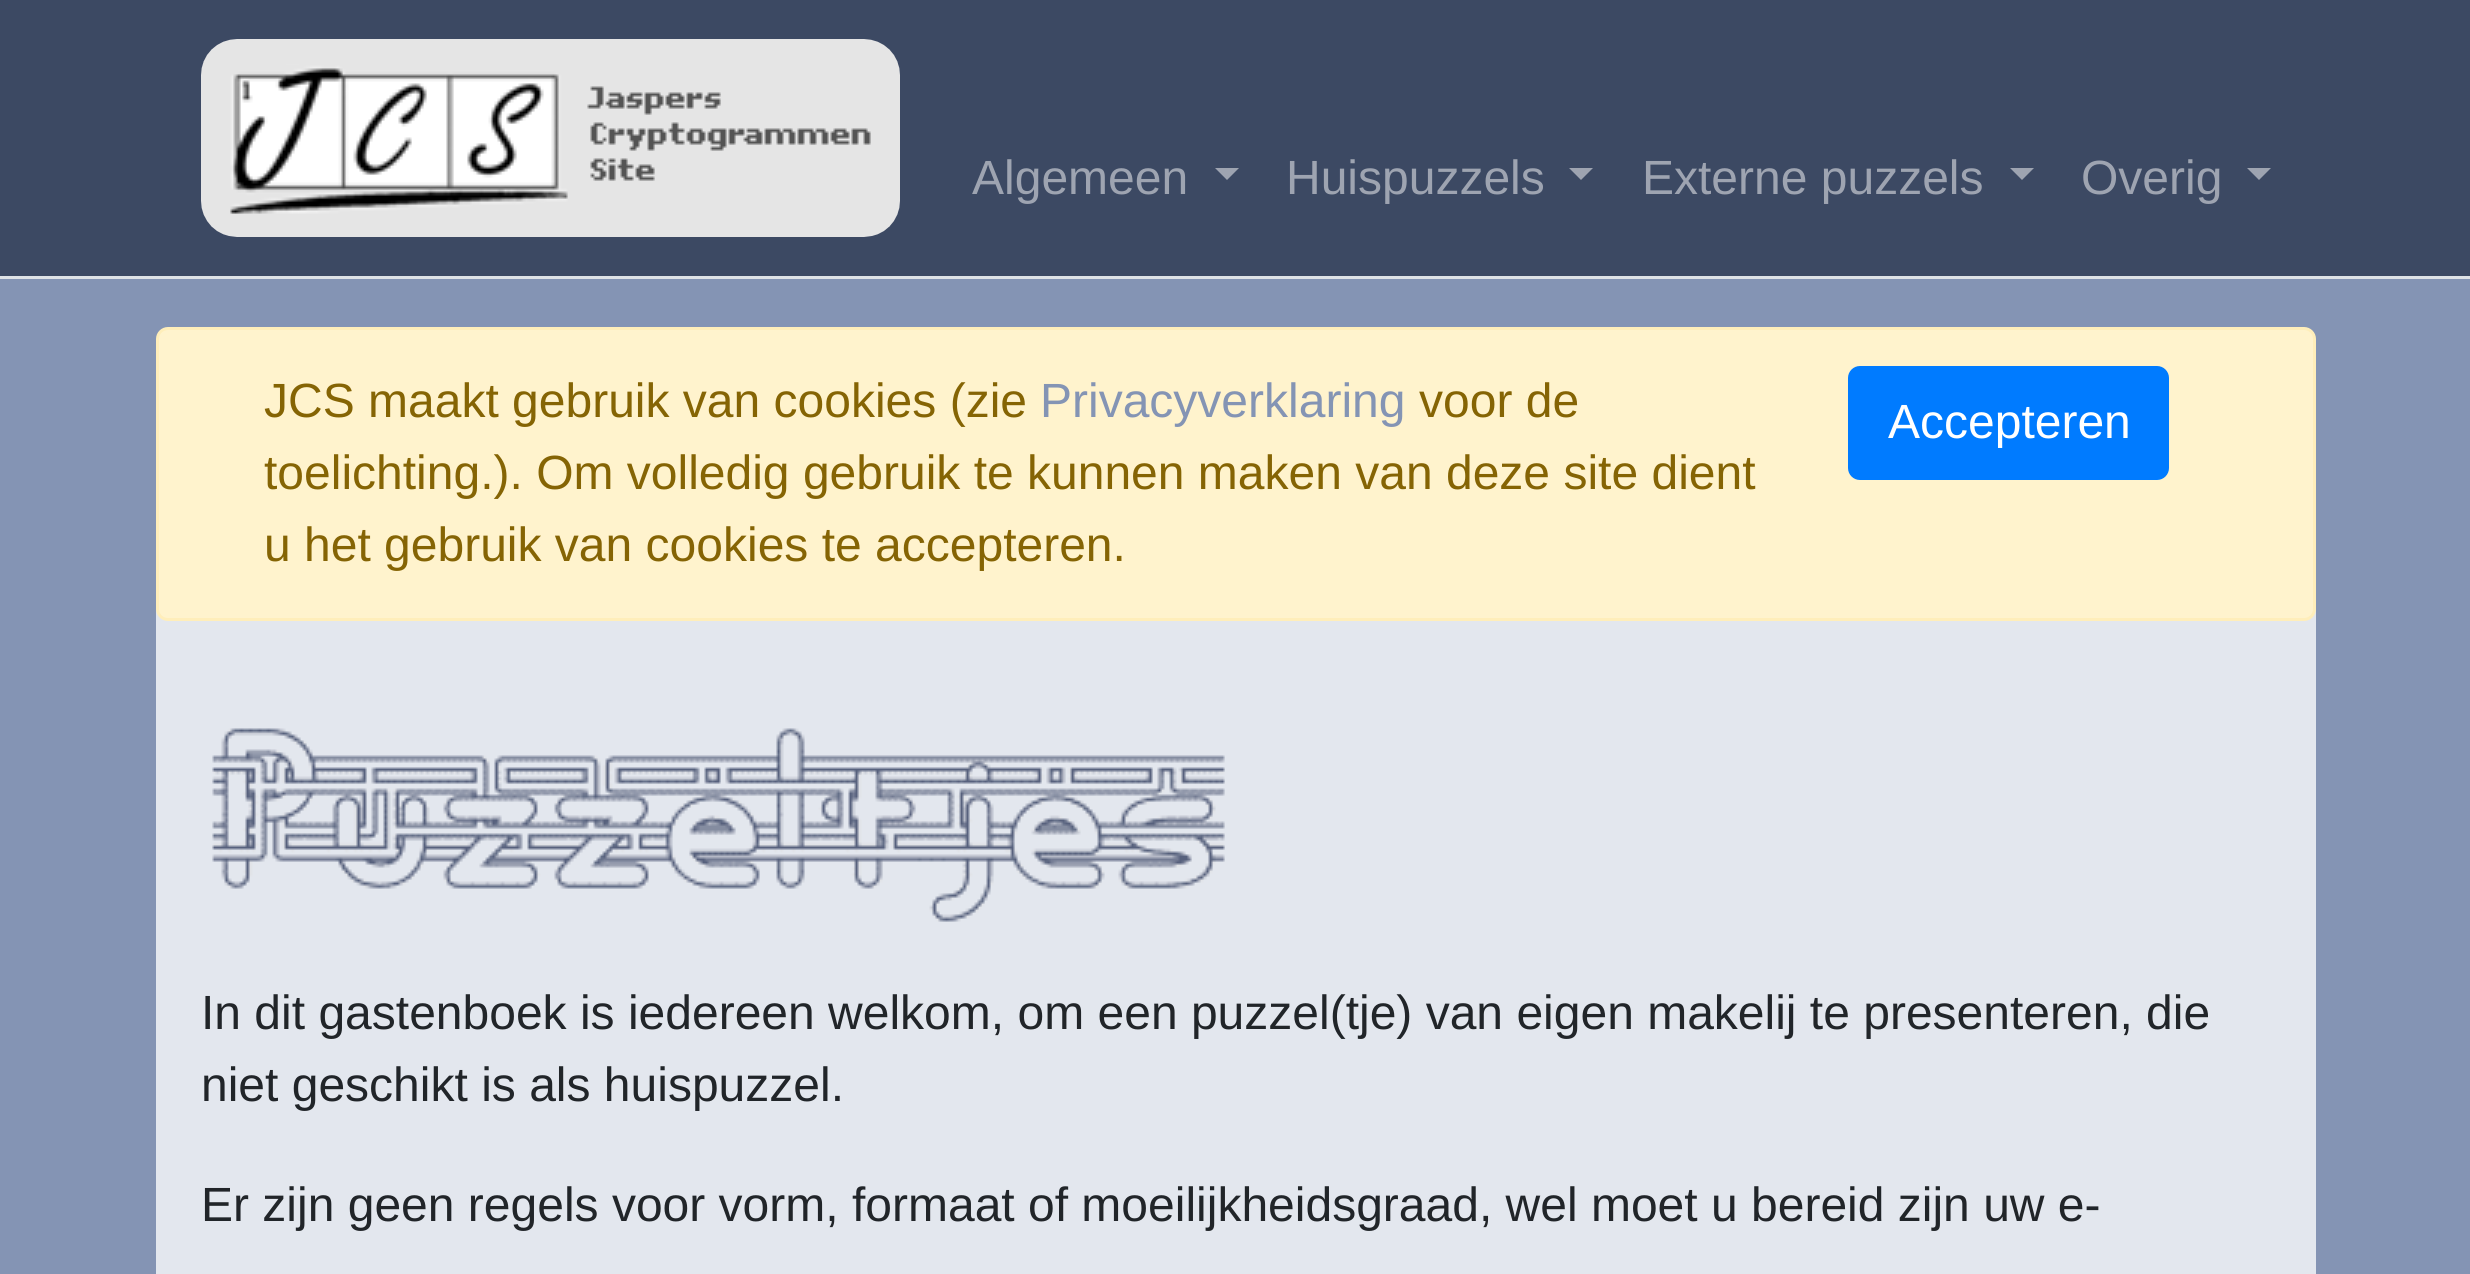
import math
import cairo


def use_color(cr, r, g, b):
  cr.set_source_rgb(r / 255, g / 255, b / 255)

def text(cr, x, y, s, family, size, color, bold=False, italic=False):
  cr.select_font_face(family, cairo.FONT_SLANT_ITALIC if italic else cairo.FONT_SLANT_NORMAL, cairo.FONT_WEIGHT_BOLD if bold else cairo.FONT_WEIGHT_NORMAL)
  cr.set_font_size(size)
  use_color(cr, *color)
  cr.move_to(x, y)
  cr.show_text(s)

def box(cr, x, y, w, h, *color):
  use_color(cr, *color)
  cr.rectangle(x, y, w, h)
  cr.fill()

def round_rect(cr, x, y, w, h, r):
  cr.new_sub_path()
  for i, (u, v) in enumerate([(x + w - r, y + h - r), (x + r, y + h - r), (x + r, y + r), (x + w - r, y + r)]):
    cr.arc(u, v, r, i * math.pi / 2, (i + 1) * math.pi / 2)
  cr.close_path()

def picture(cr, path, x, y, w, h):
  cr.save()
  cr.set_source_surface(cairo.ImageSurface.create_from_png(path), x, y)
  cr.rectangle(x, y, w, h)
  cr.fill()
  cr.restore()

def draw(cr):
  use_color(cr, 132, 148, 180)
  cr.paint()
  box(cr, 0, 0, 2470, 276, 60, 73, 99)
  box(cr, 0, 276, 2470, 3, 222, 226, 230)
  picture(cr, "img_01.png", 201, 39, 699, 198)
  use_color(cr, 158, 164, 177)
  cr.new_path()
  cr.move_to(1215, 168)
  cr.line_to(1239, 168)
  cr.line_to(1227, 180)
  cr.close_path()
  cr.fill()
  cr.new_path()
  cr.move_to(1569, 168)
  cr.line_to(1593, 168)
  cr.line_to(1581, 180)
  cr.close_path()
  cr.fill()
  cr.new_path()
  cr.move_to(2010, 168)
  cr.line_to(2034, 168)
  cr.line_to(2022, 180)
  cr.close_path()
  cr.fill()
  cr.new_path()
  cr.move_to(2247, 168)
  cr.line_to(2271, 168)
  cr.line_to(2259, 180)
  cr.close_path()
  cr.fill()
  use_color(cr, 227, 231, 238)
  round_rect(cr, 156, 327, 2160, 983, 36)
  cr.fill()
  use_color(cr, 255, 243, 205)
  round_rect(cr, 157.5, 328.5, 2157, 291, 10.5)
  cr.fill_preserve()
  use_color(cr, 255, 238, 186)
  cr.set_line_width(3)
  cr.stroke()
  use_color(cr, 0, 123, 255)
  round_rect(cr, 1849.5, 367.5, 318, 111, 10.5)
  cr.fill_preserve()
  cr.stroke()
  picture(cr, "img_02.png", 212, 728, 1013, 194)
  text(cr, 972, 194, "Algemeen", "Liberation Sans", 48, (158, 164, 177))
  text(cr, 1286, 194, "Huispuzzels", "Liberation Sans", 48, (158, 164, 177))
  text(cr, 1642, 194, "Externe puzzels", "Liberation Sans", 48, (158, 164, 177))
  text(cr, 2081, 194, "Overig", "Liberation Sans", 48, (158, 164, 177))
  text(cr, 264, 417, "JCS maakt gebruik van cookies (zie", "Liberation Sans", 48, (133, 100, 4))
  text(cr, 1040, 417, "Privacyverklaring", "Liberation Sans", 48, (132, 148, 180))
  text(cr, 1419, 417, "voor de", "Liberation Sans", 48, (133, 100, 4))
  text(cr, 264, 489, "toelichting.). Om volledig gebruik te kunnen maken van deze site dient", "Liberation Sans", 48, (133, 100, 4))
  text(cr, 264, 561, "u het gebruik van cookies te accepteren.", "Liberation Sans", 48, (133, 100, 4))
  text(cr, 1888, 438, "Accepteren", "Liberation Sans", 48, (255, 255, 255))
  text(cr, 201, 1029, "In dit gastenboek is iedereen welkom, om een puzzel(tje) van eigen makelij te presenteren, die", "Liberation Sans", 48, (33, 37, 41))
  text(cr, 201, 1101, "niet geschikt is als huispuzzel.", "Liberation Sans", 48, (33, 37, 41))
  text(cr, 201, 1221, "Er zijn geen regels voor vorm, formaat of moeilijkheidsgraad, wel moet u bereid zijn uw e-", "Liberation Sans", 48, (33, 37, 41))


surface = cairo.ImageSurface(cairo.FORMAT_RGB24, 2470, 1274)
cr = cairo.Context(surface)
options = cairo.FontOptions()
options.set_hint_metrics(cairo.HINT_METRICS_OFF)
options.set_hint_style(cairo.HINT_STYLE_NONE)
cr.set_font_options(options)
cr.set_miter_limit(4)
draw(cr)
surface.write_to_png("out.png")
